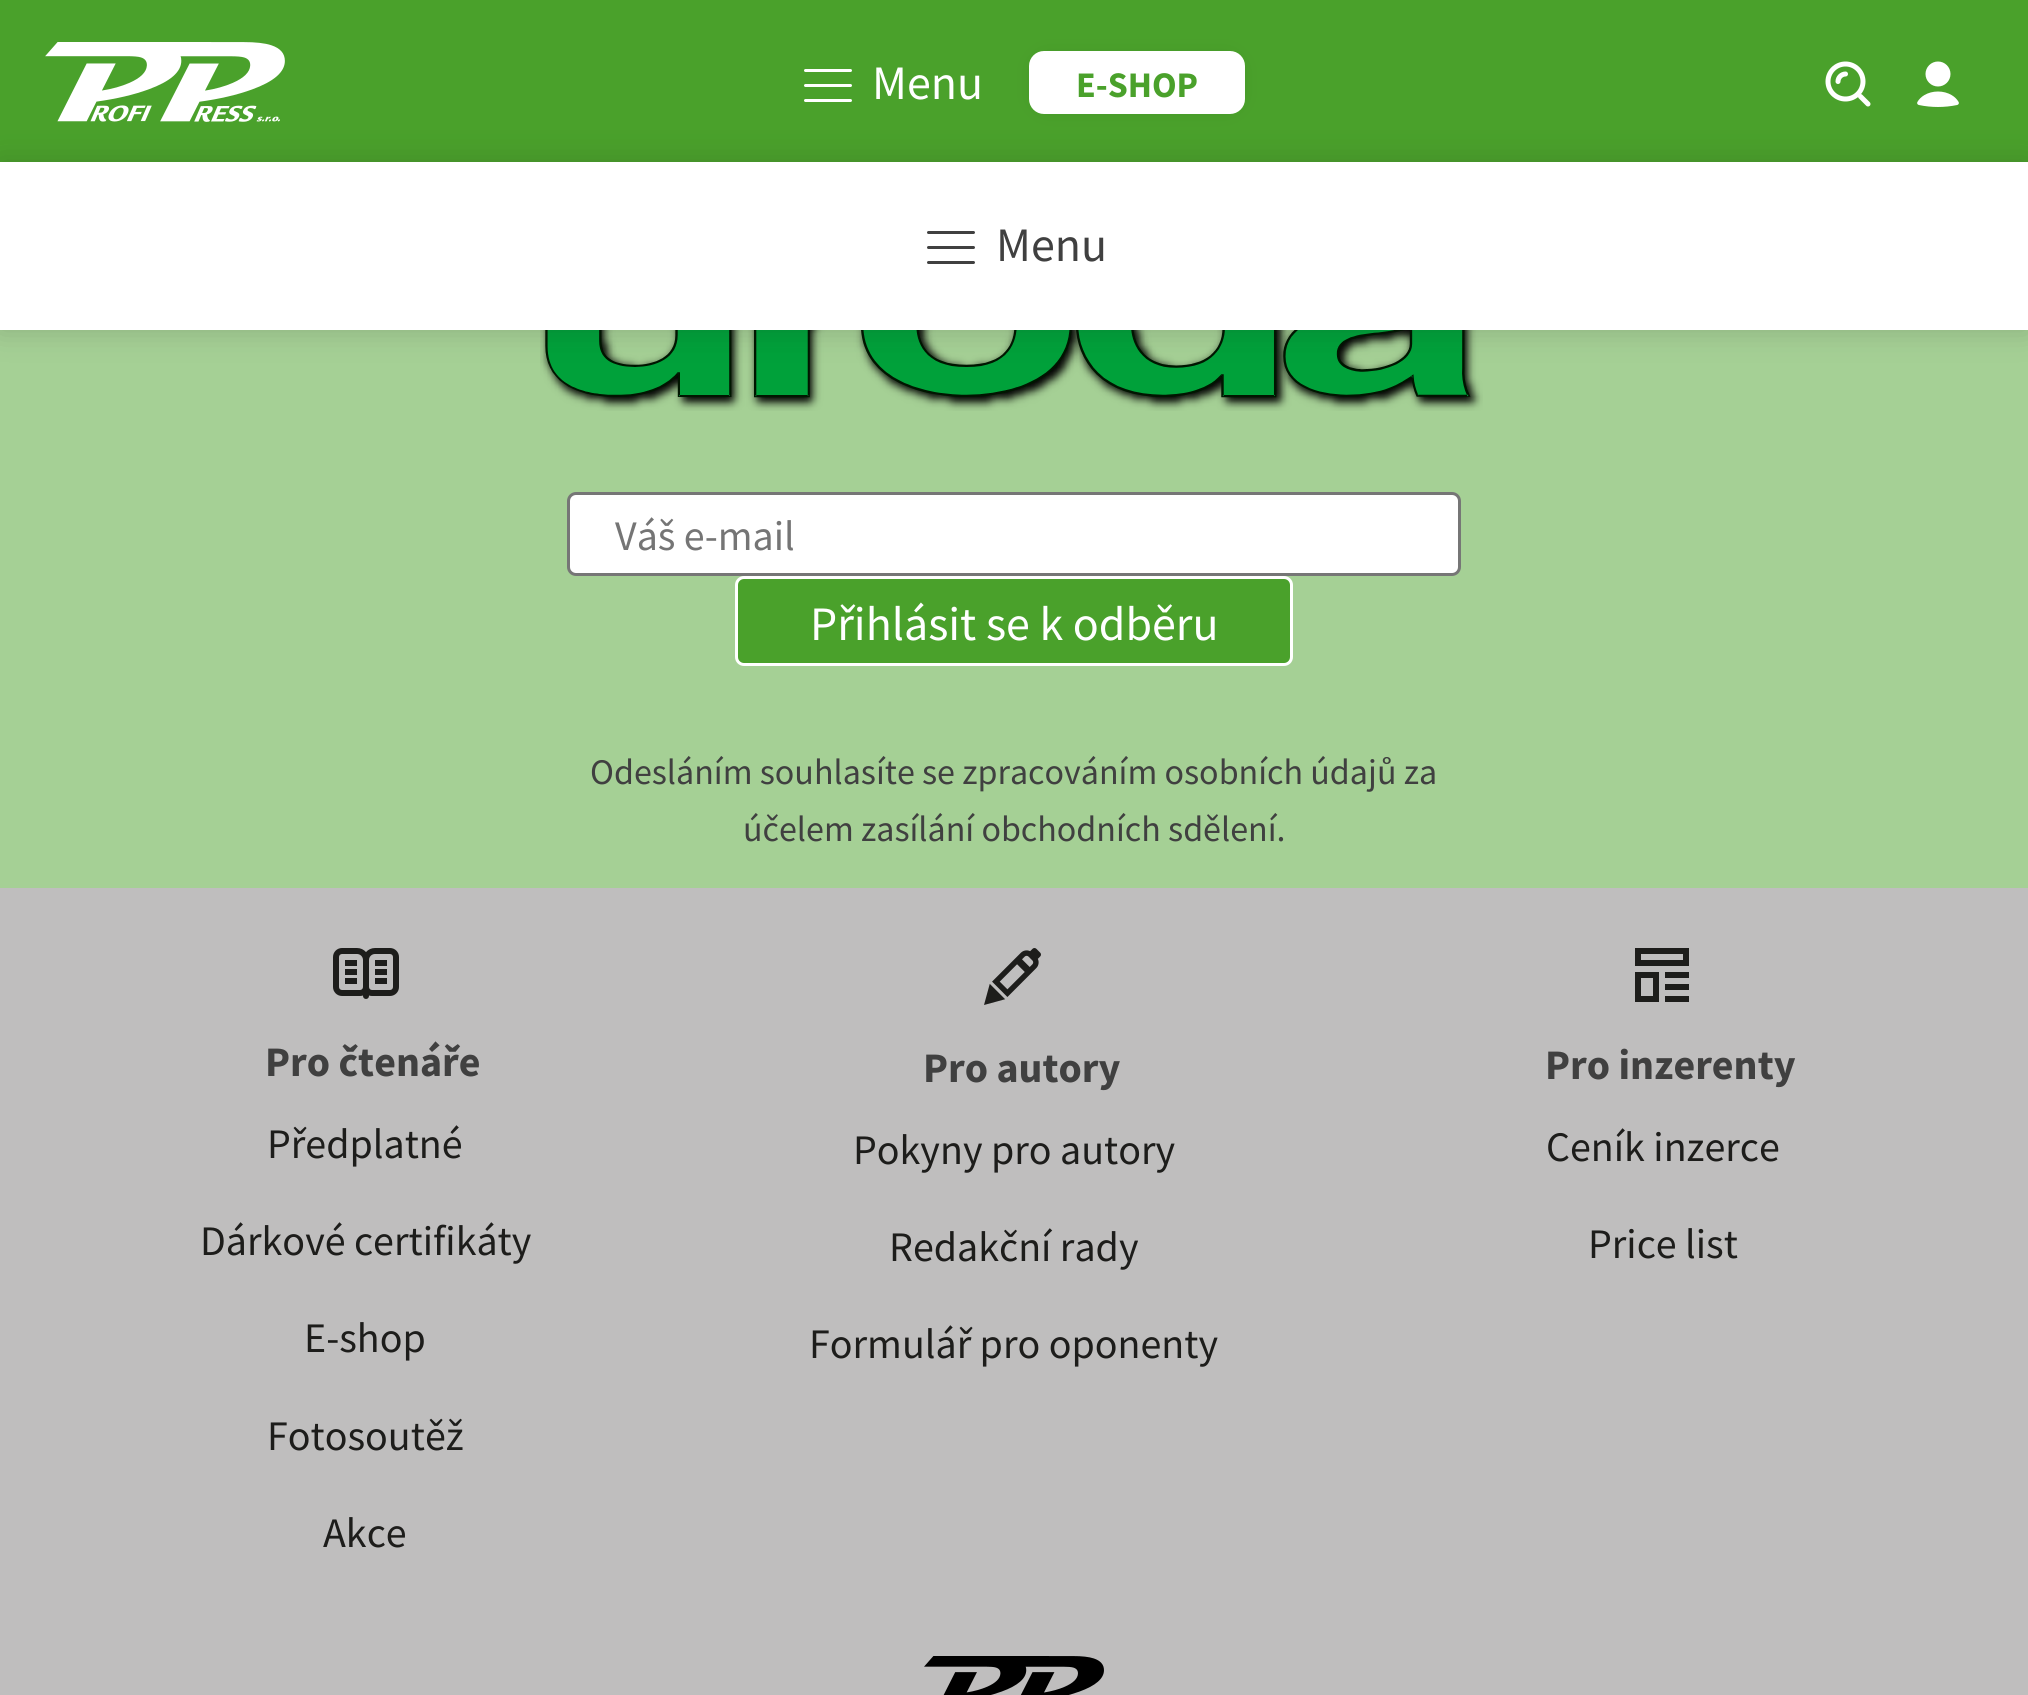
import math
import cairo


def use_color(cr, r, g, b):
  cr.set_source_rgb(r / 255, g / 255, b / 255)

def text(cr, x, y, s, family, size, color, bold=False, italic=False):
  cr.select_font_face(family, cairo.FONT_SLANT_ITALIC if italic else cairo.FONT_SLANT_NORMAL, cairo.FONT_WEIGHT_BOLD if bold else cairo.FONT_WEIGHT_NORMAL)
  cr.set_font_size(size)
  use_color(cr, *color)
  cr.move_to(x, y)
  cr.show_text(s)

def box(cr, x, y, w, h, *color):
  use_color(cr, *color)
  cr.rectangle(x, y, w, h)
  cr.fill()

def round_rect(cr, x, y, w, h, r):
  cr.new_sub_path()
  for i, (u, v) in enumerate([(x + w - r, y + h - r), (x + r, y + h - r), (x + r, y + r), (x + w - r, y + r)]):
    cr.arc(u, v, r, i * math.pi / 2, (i + 1) * math.pi / 2)
  cr.close_path()

def shadow(cr, x, y, w, h, r, blur, alpha):
  cr.push_group_with_content(cairo.CONTENT_ALPHA)
  cr.set_operator(cairo.OPERATOR_SOURCE)
  for i in range(15, -16, -2):
    e = blur * i / 6
    if min(w, h) + 2 * e > 0:
      cr.set_source_rgba(0, 0, 0, alpha * math.erfc((i - 1) / 8.5) / 2)
      round_rect(cr, x - e, y - e, w + 2 * e, h + 2 * e, max(0, min(r + e + blur * .6, min(w, h) / 2 + e)))
      cr.fill()
  cr.mask(cr.pop_group())

def picture(cr, path, x, y, w, h):
  cr.save()
  cr.set_source_surface(cairo.ImageSurface.create_from_png(path), x, y)
  cr.rectangle(x, y, w, h)
  cr.fill()
  cr.restore()

def draw(cr):
  use_color(cr, 191, 190, 190)
  cr.paint()
  box(cr, 0, 0, 2028, 162, 74, 161, 43)
  picture(cr, "img_01.png", 45, 42, 240, 80)
  picture(cr, "img_02.png", 804, 69, 48, 33)
  use_color(cr, 0, 0, 0)
  shadow(cr, 1044, 66, 186, 33, 0, 15, 0.15)
  use_color(cr, 255, 255, 255)
  round_rect(cr, 1030.5, 52.5, 213, 60, 13.5)
  cr.fill_preserve()
  cr.set_line_width(3)
  cr.stroke()
  cr.arc(1845.5, 81.5, 17.5, 0, 2 * math.pi)
  cr.set_line_width(5)
  cr.stroke()
  cr.new_path()
  cr.move_to(1845.5, 74)
  cr.curve_to(1841.5, 74, 1838, 77.5, 1838, 81.5)
  cr.move_to(1868, 104)
  cr.line_to(1860.5, 96.5)
  cr.set_line_cap(cairo.LINE_CAP_ROUND)
  cr.stroke()
  picture(cr, "img_03.png", 1917, 61, 42, 46)
  box(cr, 0, 330, 2028, 558, 165, 208, 149)
  picture(cr, "img_05.png", 540, 330, 943, 81)
  use_color(cr, 29, 29, 27)
  shadow(cr, 0, 162, 2028, 168, 0, 15, 0.2)
  box(cr, 0, 162, 2028, 168, 255, 255, 255)
  picture(cr, "img_04.png", 927, 231, 48, 33)
  round_rect(cr, 568.5, 493.5, 891, 81, 7.5)
  cr.fill_preserve()
  use_color(cr, 118, 118, 118)
  cr.set_line_width(3)
  cr.set_line_cap(cairo.LINE_CAP_BUTT)
  cr.stroke()
  use_color(cr, 74, 161, 43)
  round_rect(cr, 736.5, 577.5, 555, 87, 7.5)
  cr.fill_preserve()
  use_color(cr, 255, 255, 255)
  cr.stroke()
  picture(cr, "img_06.png", 333, 948, 66, 51)
  picture(cr, "img_07.png", 984, 948, 57, 57)
  picture(cr, "img_08.png", 1635, 948, 54, 54)
  picture(cr, "img_09.png", 924, 1656, 180, 39)
  text(cr, 872, 99, "Menu", "Source Sans Pro", 48, (255, 255, 255))
  text(cr, 1076, 97, "E-SHOP", "Source Sans Pro", 36, (74, 161, 43), bold=True)
  text(cr, 996, 261, "Menu", "Source Sans Pro", 48, (64, 64, 64))
  text(cr, 615, 550, "Váš e-mail", "Source Sans Pro", 42, (117, 117, 117))
  text(cr, 810, 640, "Přihlásit se k odběru", "Source Sans Pro", 48, (255, 255, 255))
  text(cr, 590, 784, "Odesláním souhlasíte se zpracováním osobních údajů za", "Source Sans Pro", 36, (64, 64, 64))
  text(cr, 743, 841, "účelem zasílání obchodních sdělení.", "Source Sans Pro", 36, (64, 64, 64))
  text(cr, 265, 1076, "Pro čtenáře", "Source Sans Pro", 42, (64, 64, 64), bold=True)
  text(cr, 267, 1158, "Předplatné", "Source Sans Pro", 42, (29, 29, 27))
  text(cr, 200, 1255, "Dárkové certifikáty", "Source Sans Pro", 42, (29, 29, 27))
  text(cr, 304, 1352, "E-shop", "Source Sans Pro", 42, (29, 29, 27))
  text(cr, 267, 1450, "Fotosoutěž", "Source Sans Pro", 42, (29, 29, 27))
  text(cr, 323, 1547, "Akce", "Source Sans Pro", 42, (29, 29, 27))
  text(cr, 923, 1082, "Pro autory", "Source Sans Pro", 42, (64, 64, 64), bold=True)
  text(cr, 853, 1164, "Pokyny pro autory", "Source Sans Pro", 42, (29, 29, 27))
  text(cr, 889, 1261, "Redakční rady", "Source Sans Pro", 42, (29, 29, 27))
  text(cr, 809, 1358, "Formulář pro oponenty", "Source Sans Pro", 42, (29, 29, 27))
  text(cr, 1545, 1079, "Pro inzerenty", "Source Sans Pro", 42, (64, 64, 64), bold=True)
  text(cr, 1546, 1161, "Ceník inzerce", "Source Sans Pro", 42, (29, 29, 27))
  text(cr, 1588, 1258, "Price list", "Source Sans Pro", 42, (29, 29, 27))


surface = cairo.ImageSurface(cairo.FORMAT_RGB24, 2028, 1695)
cr = cairo.Context(surface)
options = cairo.FontOptions()
options.set_hint_metrics(cairo.HINT_METRICS_OFF)
options.set_hint_style(cairo.HINT_STYLE_NONE)
cr.set_font_options(options)
cr.set_miter_limit(4)
draw(cr)
surface.write_to_png("out.png")
